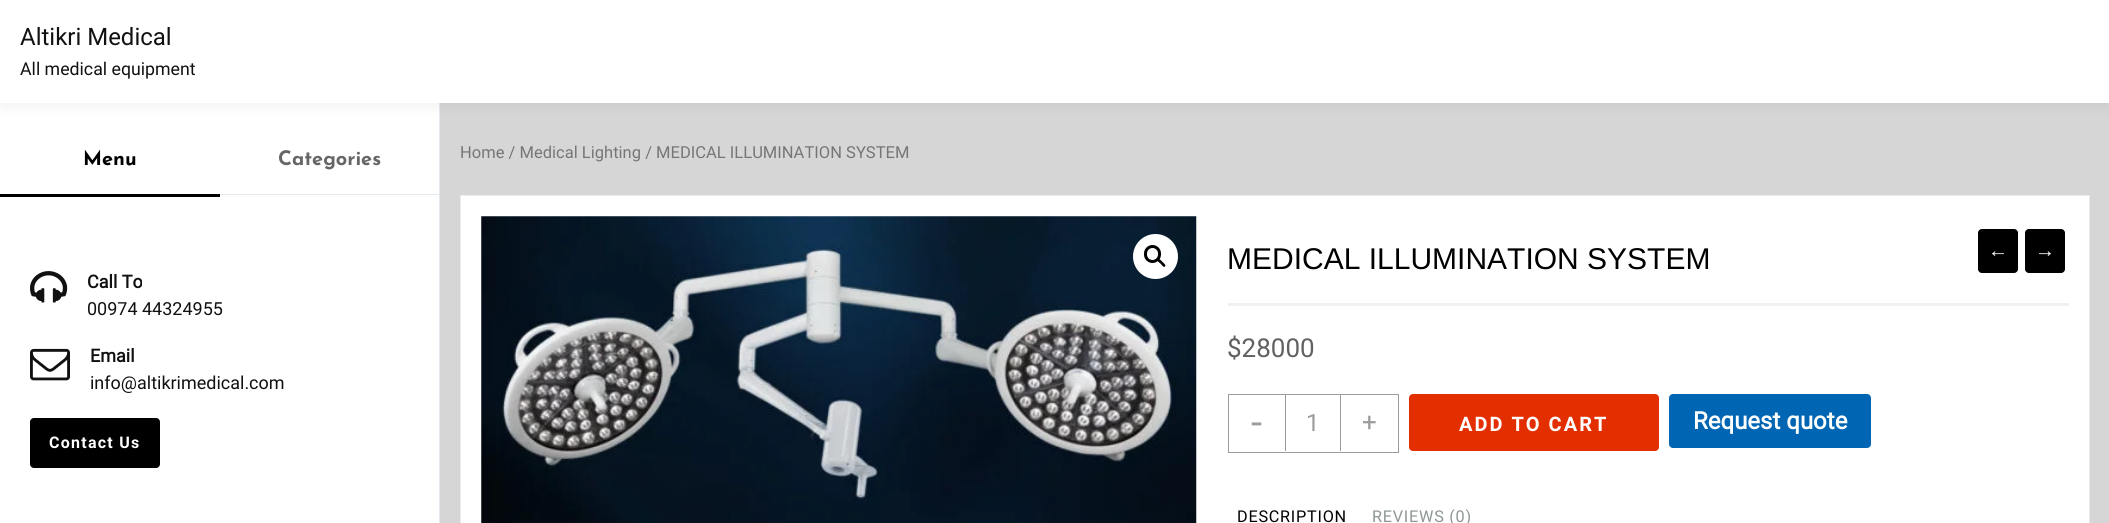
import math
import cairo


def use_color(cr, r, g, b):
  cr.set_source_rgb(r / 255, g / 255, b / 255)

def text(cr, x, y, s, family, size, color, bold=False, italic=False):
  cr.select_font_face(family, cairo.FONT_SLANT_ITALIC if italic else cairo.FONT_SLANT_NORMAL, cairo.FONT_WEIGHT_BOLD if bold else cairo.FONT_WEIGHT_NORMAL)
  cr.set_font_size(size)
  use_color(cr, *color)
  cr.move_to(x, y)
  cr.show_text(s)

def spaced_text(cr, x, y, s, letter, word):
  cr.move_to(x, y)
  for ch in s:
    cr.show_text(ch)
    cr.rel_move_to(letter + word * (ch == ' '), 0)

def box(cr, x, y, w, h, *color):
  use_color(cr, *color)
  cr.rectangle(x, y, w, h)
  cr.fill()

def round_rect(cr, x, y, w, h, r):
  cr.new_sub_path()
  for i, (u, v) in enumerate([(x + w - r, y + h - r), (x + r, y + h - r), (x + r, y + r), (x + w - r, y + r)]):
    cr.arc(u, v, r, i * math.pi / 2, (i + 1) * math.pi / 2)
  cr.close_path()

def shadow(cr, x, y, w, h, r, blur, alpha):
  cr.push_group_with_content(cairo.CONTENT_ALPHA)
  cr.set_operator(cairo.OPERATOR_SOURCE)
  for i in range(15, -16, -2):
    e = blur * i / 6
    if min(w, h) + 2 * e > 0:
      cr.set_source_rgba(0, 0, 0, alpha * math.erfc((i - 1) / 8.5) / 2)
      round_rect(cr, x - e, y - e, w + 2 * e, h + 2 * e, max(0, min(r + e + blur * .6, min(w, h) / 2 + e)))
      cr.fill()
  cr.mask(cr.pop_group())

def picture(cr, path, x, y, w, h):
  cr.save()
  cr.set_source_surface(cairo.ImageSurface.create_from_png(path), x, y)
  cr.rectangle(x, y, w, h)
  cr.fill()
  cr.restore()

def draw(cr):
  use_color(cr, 214, 214, 214)
  cr.paint()
  box(cr, 0, 103, 439, 420, 255, 255, 255)
  box(cr, 439, 103, 1, 420, 227, 233, 239)
  use_color(cr, 0, 0, 0)
  shadow(cr, 1, 6, 2108, 100, 0, 7.5, 0.06)
  box(cr, 0, 0, 2109, 103, 255, 255, 255)
  box(cr, 0, 194, 220, 3, 0, 0, 0)
  box(cr, 220, 194, 219, 1, 227, 233, 239)
  picture(cr, "img_01.png", 30, 271, 38, 32)
  picture(cr, "img_02.png", 30, 348, 40, 33)
  use_color(cr, 0, 0, 0)
  round_rect(cr, 30.5, 418.5, 129, 49, 3.5)
  cr.fill_preserve()
  cr.set_line_width(1)
  cr.stroke()
  use_color(cr, 255, 255, 255)
  cr.rectangle(460.5, 195.5, 1629, 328)
  cr.fill_preserve()
  use_color(cr, 235, 235, 235)
  cr.stroke()
  picture(cr, "img_03.png", 481, 216, 716, 307)
  use_color(cr, 255, 255, 255)
  cr.arc(1155.5, 256.5, 22.5, 0, 2 * math.pi)
  cr.fill()
  round_rect(cr, 1145.5, 246.5, 14, 15, 7)
  use_color(cr, 0, 0, 0)
  cr.set_line_width(3)
  cr.stroke()
  cr.new_path()
  cr.move_to(1158, 259.5)
  cr.curve_to(1159.5, 258, 1161.5, 261, 1162.5, 262)
  cr.curve_to(1163, 262.5, 1166.5, 265, 1165, 266.5)
  cr.curve_to(1163.5, 268, 1161.5, 264.5, 1160.5, 263.5)
  cr.curve_to(1159.5, 263, 1156.5, 260.5, 1158, 259.5)
  cr.close_path()
  cr.fill()
  box(cr, 1228, 303, 841, 3, 240, 240, 240)
  use_color(cr, 0, 0, 0)
  round_rect(cr, 1978.5, 229.5, 39, 43, 3.5)
  cr.fill_preserve()
  cr.set_line_width(1)
  cr.stroke()
  round_rect(cr, 2025.5, 229.5, 39, 43, 3.5)
  cr.fill_preserve()
  cr.stroke()
  cr.rectangle(1228.5, 394.5, 170, 58)
  use_color(cr, 156, 156, 156)
  cr.stroke()
  box(cr, 1340, 395, 1, 56, 156, 156, 156)
  box(cr, 1285, 395, 1, 56, 156, 156, 156)
  use_color(cr, 227, 46, 0)
  round_rect(cr, 1409, 394, 250, 57, 4)
  cr.fill()
  use_color(cr, 0, 102, 180)
  round_rect(cr, 1669, 394, 202, 54, 4)
  cr.fill()
  text(cr, 20, 45, "Altikri Medical", "Roboto", 24, (17, 17, 17))
  text(cr, 20, 75, "All medical equipment", "Roboto", 17.75, (17, 17, 17))
  text(cr, 83, 165, "Menu", "Josefin Sans", 20, (0, 0, 0), bold=True)
  text(cr, 278, 165, "Categories", "Josefin Sans", 20, (102, 102, 102), bold=True)
  text(cr, 87, 288, "Call To", "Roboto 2", 18, (17, 17, 17), bold=True)
  text(cr, 87, 315, "00974 44324955", "Roboto", 18, (17, 17, 17))
  text(cr, 90, 362, "Email", "Roboto 2", 18, (17, 17, 17), bold=True)
  text(cr, 90, 389, "info@altikrimedical.com", "Roboto", 18, (17, 17, 17))
  cr.select_font_face("Roboto", cairo.FONT_SLANT_NORMAL, cairo.FONT_WEIGHT_BOLD)
  cr.set_font_size(16)
  use_color(cr, 255, 255, 255)
  spaced_text(cr, 49, 448, "Contact Us", 1.25, 0)
  text(cr, 460, 158, "Home / Medical Lighting / MEDICAL ILLUMINATION SYSTEM", "Roboto", 16.55, (118, 118, 118))
  text(cr, 1227, 269, "MEDICAL ILLUMINATION SYSTEM", "Liberation Sans", 30, (0, 0, 0))
  text(cr, 1988, 257, "←", "Liberation Sans", 20, (255, 255, 255))
  text(cr, 2035, 257, "→", "Liberation Sans", 20, (255, 255, 255))
  text(cr, 1227, 357, "$28000", "Roboto", 26, (98, 96, 96))
  text(cr, 1251, 436, "-", "Roboto", 40, (156, 156, 156))
  text(cr, 1306, 431, "1", "Roboto", 24, (156, 156, 156))
  text(cr, 1362, 431, "+", "Roboto", 26, (156, 156, 156))
  cr.select_font_face("Roboto", cairo.FONT_SLANT_NORMAL, cairo.FONT_WEIGHT_BOLD)
  cr.set_font_size(20)
  use_color(cr, 255, 255, 255)
  spaced_text(cr, 1459, 431, "ADD TO CART", 2, 0)
  text(cr, 1693, 429, "Request quote", "Roboto 2", 24, (255, 255, 255), bold=True)
  cr.select_font_face("Roboto")
  cr.set_font_size(16.25)
  use_color(cr, 0, 0, 0)
  spaced_text(cr, 1237, 522, "DESCRIPTION", 0.75, 0)
  use_color(cr, 143, 150, 150)
  spaced_text(cr, 1372, 522, "REVIEWS (0)", 0.75, 0)


surface = cairo.ImageSurface(cairo.FORMAT_RGB24, 2109, 523)
cr = cairo.Context(surface)
options = cairo.FontOptions()
options.set_hint_metrics(cairo.HINT_METRICS_OFF)
options.set_hint_style(cairo.HINT_STYLE_NONE)
cr.set_font_options(options)
cr.set_miter_limit(4)
draw(cr)
surface.write_to_png("out.png")
